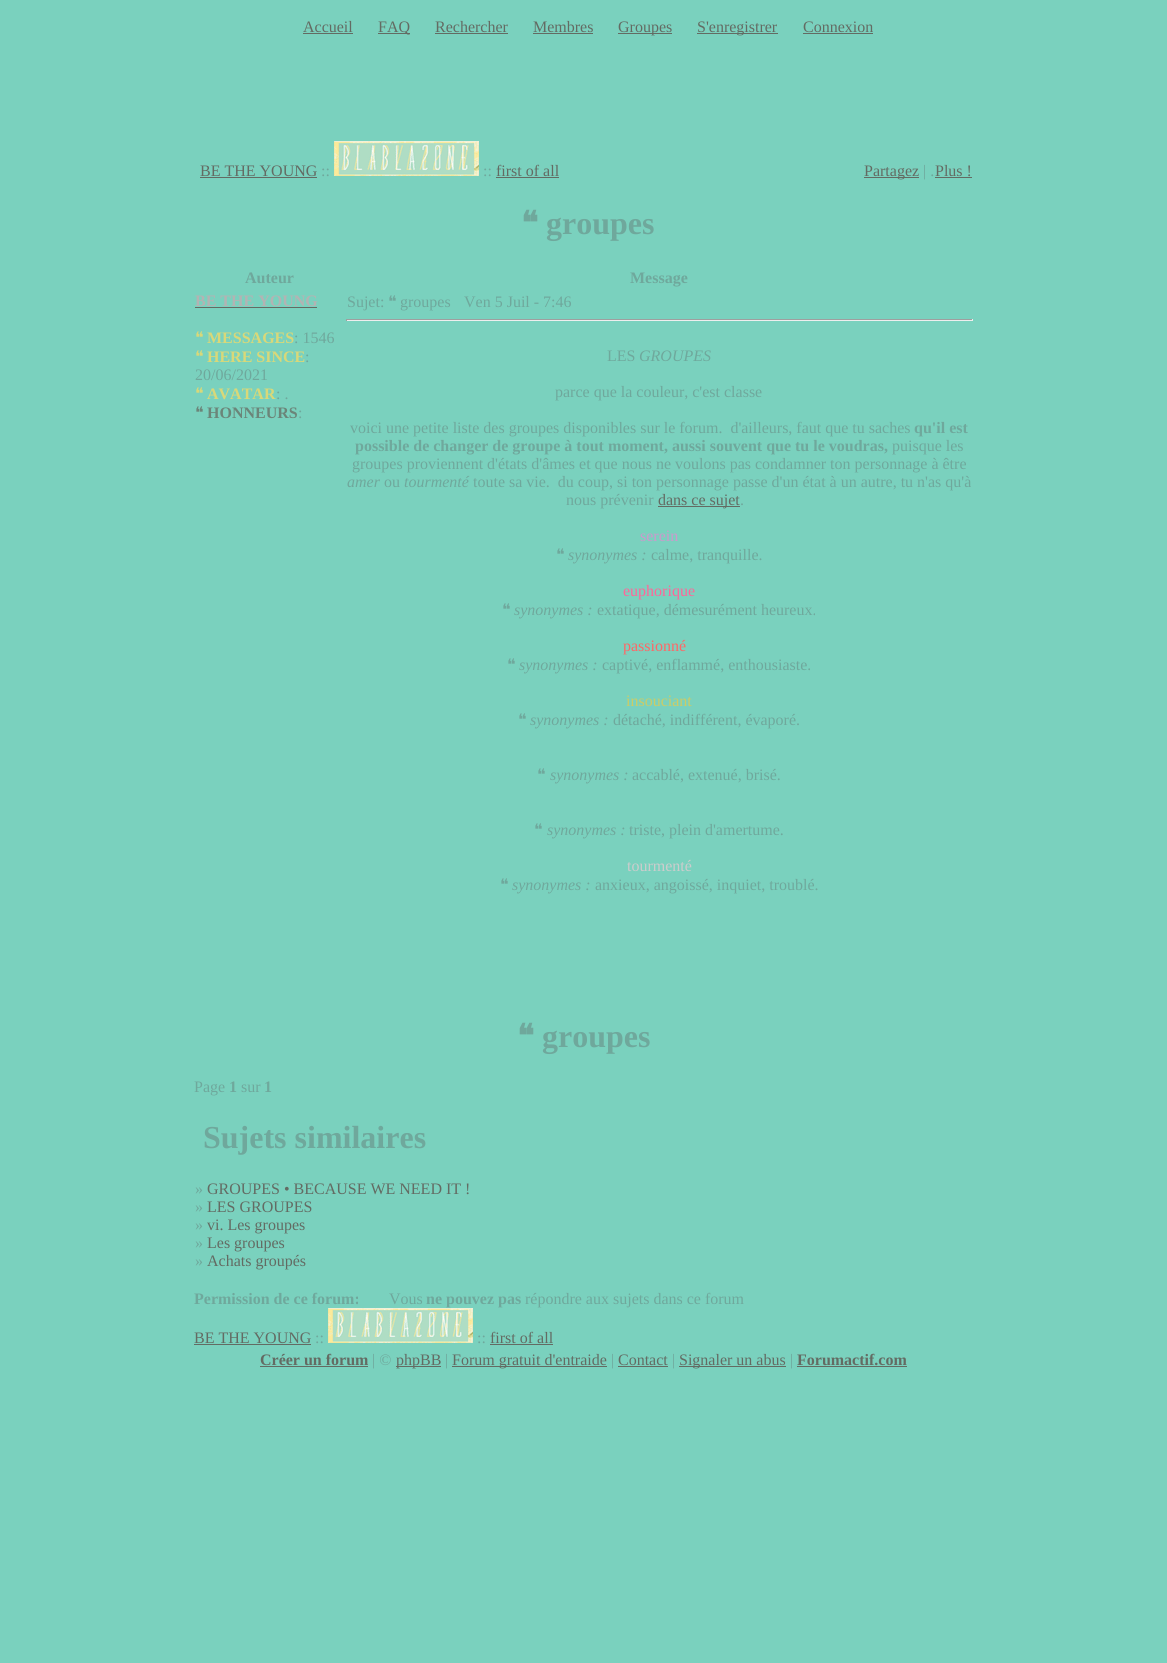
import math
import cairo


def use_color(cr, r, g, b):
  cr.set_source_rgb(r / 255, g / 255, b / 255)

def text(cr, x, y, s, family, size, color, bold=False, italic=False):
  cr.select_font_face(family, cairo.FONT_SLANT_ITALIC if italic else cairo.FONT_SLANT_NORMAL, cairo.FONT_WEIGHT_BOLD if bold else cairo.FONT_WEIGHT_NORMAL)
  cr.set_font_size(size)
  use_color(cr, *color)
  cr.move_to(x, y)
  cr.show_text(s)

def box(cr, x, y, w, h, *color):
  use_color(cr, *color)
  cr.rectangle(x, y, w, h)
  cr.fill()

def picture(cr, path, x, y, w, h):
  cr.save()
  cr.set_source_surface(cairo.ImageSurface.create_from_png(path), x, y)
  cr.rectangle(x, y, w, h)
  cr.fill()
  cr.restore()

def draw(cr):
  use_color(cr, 122, 209, 190)
  cr.paint()
  box(cr, 303, 33, 50, 1, 99, 107, 99)
  box(cr, 378, 33, 32, 1, 99, 107, 99)
  box(cr, 435, 33, 73, 1, 99, 107, 99)
  box(cr, 533, 33, 60, 1, 99, 107, 99)
  box(cr, 618, 33, 54, 1, 99, 107, 99)
  box(cr, 697, 33, 81, 1, 99, 107, 99)
  box(cr, 803, 33, 70, 1, 99, 107, 99)
  box(cr, 200, 177, 117, 1, 99, 107, 99)
  picture(cr, "img_01.png", 334, 141, 145, 35)
  box(cr, 496, 177, 63, 1, 99, 107, 99)
  box(cr, 864, 177, 55, 1, 99, 107, 99)
  box(cr, 935, 177, 37, 1, 99, 107, 99)
  box(cr, 195, 307, 122, 1, 99, 107, 99)
  box(cr, 346, 319, 627, 1, 159, 159, 159)
  box(cr, 972, 319, 1, 2, 238, 238, 238)
  box(cr, 346, 320, 627, 1, 238, 238, 238)
  box(cr, 346, 319, 1, 2, 159, 159, 159)
  box(cr, 658, 506, 82, 1, 99, 107, 99)
  box(cr, 194, 1344, 117, 1, 99, 107, 99)
  picture(cr, "img_01.png", 328, 1308, 145, 35)
  box(cr, 490, 1344, 63, 1, 99, 107, 99)
  box(cr, 260, 1366, 108, 1, 99, 107, 99)
  box(cr, 396, 1366, 45, 1, 99, 107, 99)
  box(cr, 452, 1366, 155, 1, 99, 107, 99)
  box(cr, 618, 1366, 50, 1, 99, 107, 99)
  box(cr, 679, 1366, 107, 1, 99, 107, 99)
  box(cr, 797, 1366, 110, 1, 99, 107, 99)
  text(cr, 303, 32, "Accueil", "Liberation Serif", 16, (99, 107, 99))
  text(cr, 378, 32, "FAQ", "Liberation Serif", 16, (99, 107, 99))
  text(cr, 435, 32, "Rechercher", "Liberation Serif", 16, (99, 107, 99))
  text(cr, 533, 32, "Membres", "Liberation Serif", 16, (99, 107, 99))
  text(cr, 618, 32, "Groupes", "Liberation Serif", 16, (99, 107, 99))
  text(cr, 697, 32, "S'enregistrer", "Liberation Serif", 16, (99, 107, 99))
  text(cr, 803, 32, "Connexion", "Liberation Serif", 16, (99, 107, 99))
  text(cr, 200, 176, "BE THE YOUNG", "Liberation Serif", 16, (99, 107, 99))
  text(cr, 321, 176, "::", "Liberation Serif", 16, (111, 168, 156))
  text(cr, 483, 176, "::", "Liberation Serif", 16, (111, 168, 156))
  text(cr, 496, 176, "first of all", "Liberation Serif", 16, (99, 107, 99))
  text(cr, 864, 176, "Partagez", "Liberation Serif", 16, (99, 107, 99))
  text(cr, 923, 176, "| .", "Liberation Serif", 16, (111, 168, 156))
  text(cr, 935, 176, "Plus !", "Liberation Serif", 16, (99, 107, 99))
  text(cr, 521, 234, "❝", "DejaVu Sans", 32, (111, 168, 156), bold=True)
  text(cr, 546, 234, "groupes", "Liberation Serif", 32, (111, 168, 156), bold=True)
  text(cr, 245, 283, "Auteur", "Liberation Serif", 16, (111, 168, 156), bold=True)
  text(cr, 630, 283, "Message", "Liberation Serif", 16, (111, 168, 156), bold=True)
  text(cr, 195, 306, "BE THE YOUNG", "Liberation Serif", 16, (179, 179, 179), bold=True)
  text(cr, 195, 343, "❝", "DejaVu Sans", 16, (217, 216, 120))
  text(cr, 207, 343, "MESSAGES", "Liberation Serif", 16, (217, 216, 120), bold=True)
  text(cr, 294, 343, ": 1546", "Liberation Serif", 16, (111, 168, 156))
  text(cr, 195, 362, "❝", "DejaVu Sans", 16, (217, 216, 120))
  text(cr, 207, 362, "HERE SINCE", "Liberation Serif", 16, (217, 216, 120), bold=True)
  text(cr, 305, 362, ":", "Liberation Serif", 16, (111, 168, 156))
  text(cr, 195, 380, "20/06/2021", "Liberation Serif", 16, (111, 168, 156))
  text(cr, 195, 399, "❝", "DejaVu Sans", 16, (217, 216, 120))
  text(cr, 207, 399, "AVATAR", "Liberation Serif", 16, (217, 216, 120), bold=True)
  text(cr, 276, 399, ": .", "Liberation Serif", 16, (111, 168, 156))
  text(cr, 195, 418, "❝", "DejaVu Sans", 16, (107, 133, 121))
  text(cr, 207, 418, "HONNEURS", "Liberation Serif", 16, (107, 133, 121), bold=True)
  text(cr, 298, 418, ":", "Liberation Serif", 16, (111, 168, 156))
  text(cr, 347, 307, "Sujet:", "Liberation Serif", 16, (111, 168, 156))
  text(cr, 388, 307, "❝", "DejaVu Sans", 16, (111, 168, 156))
  text(cr, 400, 307, "groupes", "Liberation Serif", 16, (111, 168, 156))
  text(cr, 464, 307, "Ven 5 Juil - 7:46", "Liberation Serif", 16, (111, 168, 156))
  text(cr, 607, 361, "LES", "Liberation Serif", 16, (111, 168, 156))
  text(cr, 639, 361, "GROUPES", "Liberation Serif", 16, (111, 168, 156), italic=True)
  text(cr, 555, 397, "parce que la couleur, c'est classe", "Liberation Serif", 16, (111, 168, 156))
  text(cr, 350, 433, "voici une petite liste des groupes disponibles sur le forum.  d'ailleurs, faut que tu saches", "Liberation Serif", 16, (111, 168, 156))
  text(cr, 914, 433, "qu'il est", "Liberation Serif", 16, (111, 168, 156), bold=True)
  text(cr, 355, 451, "possible de changer de groupe à tout moment, aussi souvent que tu le voudras,", "Liberation Serif", 16, (111, 168, 156), bold=True)
  text(cr, 892, 451, "puisque les", "Liberation Serif", 16, (111, 168, 156))
  text(cr, 352, 469, "groupes proviennent d'états d'âmes et que nous ne voulons pas condamner ton personnage à être", "Liberation Serif", 16, (111, 168, 156))
  text(cr, 347, 487, "amer", "Liberation Serif", 16, (111, 168, 156), italic=True)
  text(cr, 384, 487, "ou", "Liberation Serif", 16, (111, 168, 156))
  text(cr, 404, 487, "tourmenté", "Liberation Serif", 16, (111, 168, 156), italic=True)
  text(cr, 473, 487, "toute sa vie.  du coup, si ton personnage passe d'un état à un autre, tu n'as qu'à", "Liberation Serif", 16, (111, 168, 156))
  text(cr, 566, 505, "nous prévenir", "Liberation Serif", 16, (111, 168, 156))
  text(cr, 658, 505, "dans ce sujet", "Liberation Serif", 16, (99, 107, 99))
  text(cr, 740, 505, ".", "Liberation Serif", 16, (111, 168, 156))
  text(cr, 640, 541, "serein", "Liberation Serif", 16, (204, 153, 204))
  text(cr, 556, 560, "❝", "DejaVu Sans", 16, (111, 168, 156))
  text(cr, 568, 560, "synonymes :", "Liberation Serif", 16, (111, 168, 156), italic=True)
  text(cr, 651, 560, "calme, tranquille.", "Liberation Serif", 16, (111, 168, 156))
  text(cr, 623, 596, "euphorique", "Liberation Serif", 16, (255, 102, 153))
  text(cr, 502, 615, "❝", "DejaVu Sans", 16, (111, 168, 156))
  text(cr, 514, 615, "synonymes :", "Liberation Serif", 16, (111, 168, 156), italic=True)
  text(cr, 597, 615, "extatique, démesurément heureux.", "Liberation Serif", 16, (111, 168, 156))
  text(cr, 623, 651, "passionné", "Liberation Serif", 16, (255, 102, 102))
  text(cr, 507, 670, "❝", "DejaVu Sans", 16, (111, 168, 156))
  text(cr, 519, 670, "synonymes :", "Liberation Serif", 16, (111, 168, 156), italic=True)
  text(cr, 602, 670, "captivé, enflammé, enthousiaste.", "Liberation Serif", 16, (111, 168, 156))
  text(cr, 626, 706, "insouciant", "Liberation Serif", 16, (204, 204, 102))
  text(cr, 518, 725, "❝", "DejaVu Sans", 16, (111, 168, 156))
  text(cr, 530, 725, "synonymes :", "Liberation Serif", 16, (111, 168, 156), italic=True)
  text(cr, 613, 725, "détaché, indifférent, évaporé.", "Liberation Serif", 16, (111, 168, 156))
  text(cr, 537, 780, "❝", "DejaVu Sans", 16, (111, 168, 156))
  text(cr, 550, 780, "synonymes :", "Liberation Serif", 16, (111, 168, 156), italic=True)
  text(cr, 632, 780, "accablé, extenué, brisé.", "Liberation Serif", 16, (111, 168, 156))
  text(cr, 534, 835, "❝", "DejaVu Sans", 16, (111, 168, 156))
  text(cr, 547, 835, "synonymes :", "Liberation Serif", 16, (111, 168, 156), italic=True)
  text(cr, 629, 835, "triste, plein d'amertume.", "Liberation Serif", 16, (111, 168, 156))
  text(cr, 627, 871, "tourmenté", "Liberation Serif", 16, (204, 204, 204))
  text(cr, 500, 890, "❝", "DejaVu Sans", 16, (111, 168, 156))
  text(cr, 512, 890, "synonymes :", "Liberation Serif", 16, (111, 168, 156), italic=True)
  text(cr, 595, 890, "anxieux, angoissé, inquiet, troublé.", "Liberation Serif", 16, (111, 168, 156))
  text(cr, 517, 1047, "❝", "DejaVu Sans", 32, (111, 168, 156), bold=True)
  text(cr, 542, 1047, "groupes", "Liberation Serif", 32, (111, 168, 156), bold=True)
  text(cr, 194, 1092, "Page", "Liberation Serif", 16, (111, 168, 156))
  text(cr, 229, 1092, "1", "Liberation Serif", 16, (111, 168, 156), bold=True)
  text(cr, 241, 1092, "sur", "Liberation Serif", 16, (111, 168, 156))
  text(cr, 264, 1092, "1", "Liberation Serif", 16, (111, 168, 156), bold=True)
  text(cr, 203, 1148, "Sujets similaires", "Liberation Serif", 32, (111, 168, 156), bold=True)
  text(cr, 195, 1194, "»", "Liberation Serif", 16, (111, 168, 156))
  text(cr, 207, 1194, "GROUPES • BECAUSE WE NEED IT !", "Liberation Serif", 16, (99, 107, 99))
  text(cr, 195, 1212, "»", "Liberation Serif", 16, (111, 168, 156))
  text(cr, 207, 1212, "LES GROUPES", "Liberation Serif", 16, (99, 107, 99))
  text(cr, 195, 1230, "»", "Liberation Serif", 16, (111, 168, 156))
  text(cr, 207, 1230, "vi. Les groupes", "Liberation Serif", 16, (99, 107, 99))
  text(cr, 195, 1248, "»", "Liberation Serif", 16, (111, 168, 156))
  text(cr, 207, 1248, "Les groupes", "Liberation Serif", 16, (99, 107, 99))
  text(cr, 195, 1266, "»", "Liberation Serif", 16, (111, 168, 156))
  text(cr, 207, 1266, "Achats groupés", "Liberation Serif", 16, (99, 107, 99))
  text(cr, 194, 1304, "Permission de ce forum:", "Liberation Serif", 16, (111, 168, 156), bold=True)
  text(cr, 389, 1304, "Vous", "Liberation Serif", 16, (111, 168, 156))
  text(cr, 426, 1304, "ne pouvez pas", "Liberation Serif", 16, (111, 168, 156), bold=True)
  text(cr, 525, 1304, "répondre aux sujets dans ce forum", "Liberation Serif", 16, (111, 168, 156))
  text(cr, 194, 1343, "BE THE YOUNG", "Liberation Serif", 16, (99, 107, 99))
  text(cr, 315, 1343, "::", "Liberation Serif", 16, (111, 168, 156))
  text(cr, 477, 1343, "::", "Liberation Serif", 16, (111, 168, 156))
  text(cr, 490, 1343, "first of all", "Liberation Serif", 16, (99, 107, 99))
  text(cr, 260, 1365, "Créer un forum", "Liberation Serif", 16, (99, 107, 99), bold=True)
  text(cr, 372, 1365, "| ©", "Liberation Serif", 16, (111, 168, 156))
  text(cr, 396, 1365, "phpBB", "Liberation Serif", 16, (99, 107, 99))
  text(cr, 445, 1365, "|", "Liberation Serif", 16, (111, 168, 156))
  text(cr, 452, 1365, "Forum gratuit d'entraide", "Liberation Serif", 16, (99, 107, 99))
  text(cr, 611, 1365, "|", "Liberation Serif", 16, (111, 168, 156))
  text(cr, 618, 1365, "Contact", "Liberation Serif", 16, (99, 107, 99))
  text(cr, 672, 1365, "|", "Liberation Serif", 16, (111, 168, 156))
  text(cr, 679, 1365, "Signaler un abus", "Liberation Serif", 16, (99, 107, 99))
  text(cr, 790, 1365, "|", "Liberation Serif", 16, (111, 168, 156))
  text(cr, 797, 1365, "Forumactif.com", "Liberation Serif", 16, (99, 107, 99), bold=True)


surface = cairo.ImageSurface(cairo.FORMAT_RGB24, 1167, 1663)
cr = cairo.Context(surface)
options = cairo.FontOptions()
options.set_hint_metrics(cairo.HINT_METRICS_OFF)
options.set_hint_style(cairo.HINT_STYLE_NONE)
cr.set_font_options(options)
cr.set_miter_limit(4)
draw(cr)
surface.write_to_png("out.png")
